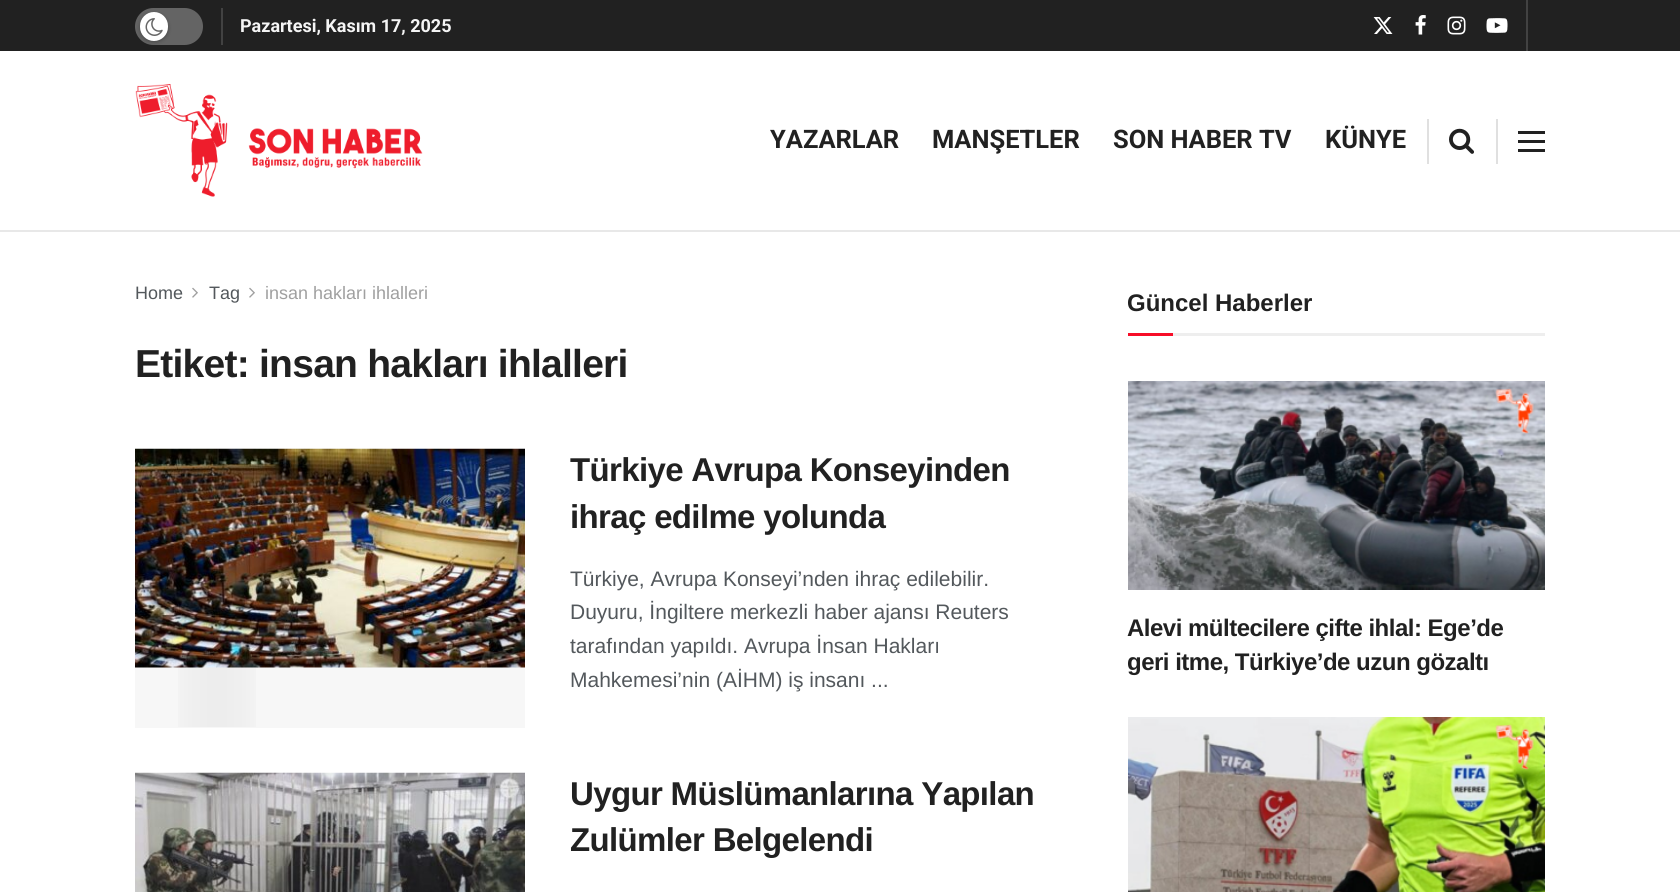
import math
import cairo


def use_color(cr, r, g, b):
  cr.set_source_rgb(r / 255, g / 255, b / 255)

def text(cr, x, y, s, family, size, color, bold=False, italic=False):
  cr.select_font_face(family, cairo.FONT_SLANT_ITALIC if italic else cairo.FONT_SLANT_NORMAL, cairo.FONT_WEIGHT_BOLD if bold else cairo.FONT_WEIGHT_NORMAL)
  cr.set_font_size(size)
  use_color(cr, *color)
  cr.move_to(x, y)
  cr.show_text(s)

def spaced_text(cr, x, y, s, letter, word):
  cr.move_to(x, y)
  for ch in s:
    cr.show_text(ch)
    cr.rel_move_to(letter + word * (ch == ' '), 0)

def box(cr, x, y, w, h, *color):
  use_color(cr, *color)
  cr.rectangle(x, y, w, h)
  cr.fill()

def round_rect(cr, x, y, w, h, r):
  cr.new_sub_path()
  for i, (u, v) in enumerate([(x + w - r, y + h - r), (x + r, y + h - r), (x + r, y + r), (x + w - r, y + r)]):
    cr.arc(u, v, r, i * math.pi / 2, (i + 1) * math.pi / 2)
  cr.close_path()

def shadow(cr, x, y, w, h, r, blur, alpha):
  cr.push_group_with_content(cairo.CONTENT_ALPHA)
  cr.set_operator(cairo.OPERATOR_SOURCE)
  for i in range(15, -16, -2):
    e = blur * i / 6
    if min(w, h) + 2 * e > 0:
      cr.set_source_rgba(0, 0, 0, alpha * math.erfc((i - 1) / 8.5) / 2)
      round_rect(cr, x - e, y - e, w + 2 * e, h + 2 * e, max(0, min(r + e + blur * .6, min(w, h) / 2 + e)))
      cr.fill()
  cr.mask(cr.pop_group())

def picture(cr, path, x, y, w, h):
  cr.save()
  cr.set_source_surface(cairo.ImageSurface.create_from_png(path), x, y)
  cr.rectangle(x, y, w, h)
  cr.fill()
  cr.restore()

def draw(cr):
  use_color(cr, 255, 255, 255)
  cr.paint()
  box(cr, 0, 0, 1680, 51, 33, 33, 33)
  box(cr, 1526, 0, 2, 51, 66, 66, 66)
  box(cr, 221, 8, 2, 37, 66, 66, 66)
  use_color(cr, 100, 100, 100)
  round_rect(cr, 135, 8, 68, 37, 18.5)
  cr.fill()
  use_color(cr, 0, 0, 0)
  shadow(cr, 140, 14, 28, 28, 14, 2, 0.3)
  use_color(cr, 255, 255, 255)
  round_rect(cr, 140, 12, 28, 29, 14)
  cr.fill()
  picture(cr, "img_01.png", 145, 18, 18, 18)
  picture(cr, "img_02.png", 1373, 17, 20, 17)
  picture(cr, "img_03.png", 1415, 15, 11, 20)
  picture(cr, "img_04.png", 1447, 16, 19, 19)
  picture(cr, "img_05.png", 1486, 18, 22, 15)
  box(cr, 0, 230, 1680, 2, 232, 232, 232)
  picture(cr, "img_06.png", 135, 84, 288, 113)
  box(cr, 1427, 119, 2, 45, 224, 224, 224)
  picture(cr, "img_07.png", 1449, 128, 25, 26)
  box(cr, 1496, 119, 2, 45, 224, 224, 224)
  box(cr, 1518, 131, 27, 3, 33, 33, 33)
  box(cr, 1518, 140, 27, 3, 33, 33, 33)
  box(cr, 1518, 149, 27, 3, 33, 33, 33)
  picture(cr, "img_08.png", 192, 287, 6, 11)
  picture(cr, "img_08.png", 249, 287, 6, 11)
  box(cr, 135, 667, 390, 61, 247, 247, 247)
  picture(cr, "img_10.png", 178, 448, 78, 279)
  picture(cr, "img_09.png", 135, 448, 390, 220)
  picture(cr, "img_12.png", 178, 772, 78, 1)
  picture(cr, "img_11.png", 135, 772, 390, 120)
  box(cr, 1173, 333, 372, 3, 238, 238, 238)
  box(cr, 1128, 333, 45, 3, 247, 13, 40)
  picture(cr, "img_13.png", 1128, 381, 417, 209)
  picture(cr, "img_14.png", 1128, 717, 417, 175)
  text(cr, 240, 32, "Pazartesi, Kasım 17, 2025", "Roboto", 18, (245, 245, 245), bold=True)
  text(cr, 770, 148, "YAZARLAR", "Roboto", 25.5, (33, 33, 33), bold=True)
  text(cr, 932, 148, "MANŞETLER", "Roboto", 25.5, (33, 33, 33), bold=True)
  text(cr, 1113, 148, "SON HABER TV", "Roboto", 25.5, (33, 33, 33), bold=True)
  text(cr, 1325, 148, "KÜNYE", "Roboto", 25.5, (33, 33, 33), bold=True)
  text(cr, 135, 299, "Home", "Liberation Sans", 18, (83, 88, 92))
  text(cr, 209, 299, "Tag", "Liberation Sans", 18, (83, 88, 92))
  text(cr, 265, 299, "insan hakları ihlalleri", "Liberation Sans", 18, (160, 160, 160))
  cr.select_font_face("Liberation Sans", cairo.FONT_SLANT_NORMAL, cairo.FONT_WEIGHT_BOLD)
  cr.set_font_size(39)
  use_color(cr, 33, 33, 33)
  spaced_text(cr, 135, 377, "Etiket: insan hakları ihlalleri", -0.75, 0)
  cr.set_font_size(33)
  spaced_text(cr, 570, 481, "Türkiye Avrupa Konseyinden", -0.65, 0)
  spaced_text(cr, 570, 528, "ihraç edilme yolunda", -0.65, 0)
  text(cr, 570, 586, "Türkiye, Avrupa Konseyi’nden ihraç edilebilir.", "Liberation Sans", 21, (83, 88, 92))
  text(cr, 570, 619, "Duyuru, İngiltere merkezli haber ajansı Reuters", "Liberation Sans", 21, (83, 88, 92))
  text(cr, 570, 653, "tarafından yapıldı. Avrupa İnsan Hakları", "Liberation Sans", 21, (83, 88, 92))
  text(cr, 570, 687, "Mahkemesi’nin (AİHM) iş insanı ...", "Liberation Sans", 21, (83, 88, 92))
  cr.select_font_face("Liberation Sans", cairo.FONT_SLANT_NORMAL, cairo.FONT_WEIGHT_BOLD)
  cr.set_font_size(33)
  use_color(cr, 33, 33, 33)
  spaced_text(cr, 570, 805, "Uygur Müslümanlarına Yapılan", -0.65, 0)
  spaced_text(cr, 570, 851, "Zulümler Belgelendi", -0.65, 0)
  text(cr, 1127, 311, "Güncel Haberler", "Liberation Sans", 24, (33, 33, 33), bold=True)
  spaced_text(cr, 1127, 636, "Alevi mültecilere çifte ihlal: Ege’de", -0.5, 0)
  spaced_text(cr, 1127, 670, "geri itme, Türkiye’de uzun gözaltı", -0.5, 0)


surface = cairo.ImageSurface(cairo.FORMAT_RGB24, 1680, 892)
cr = cairo.Context(surface)
options = cairo.FontOptions()
options.set_hint_metrics(cairo.HINT_METRICS_OFF)
options.set_hint_style(cairo.HINT_STYLE_NONE)
cr.set_font_options(options)
cr.set_miter_limit(4)
draw(cr)
surface.write_to_png("out.png")
